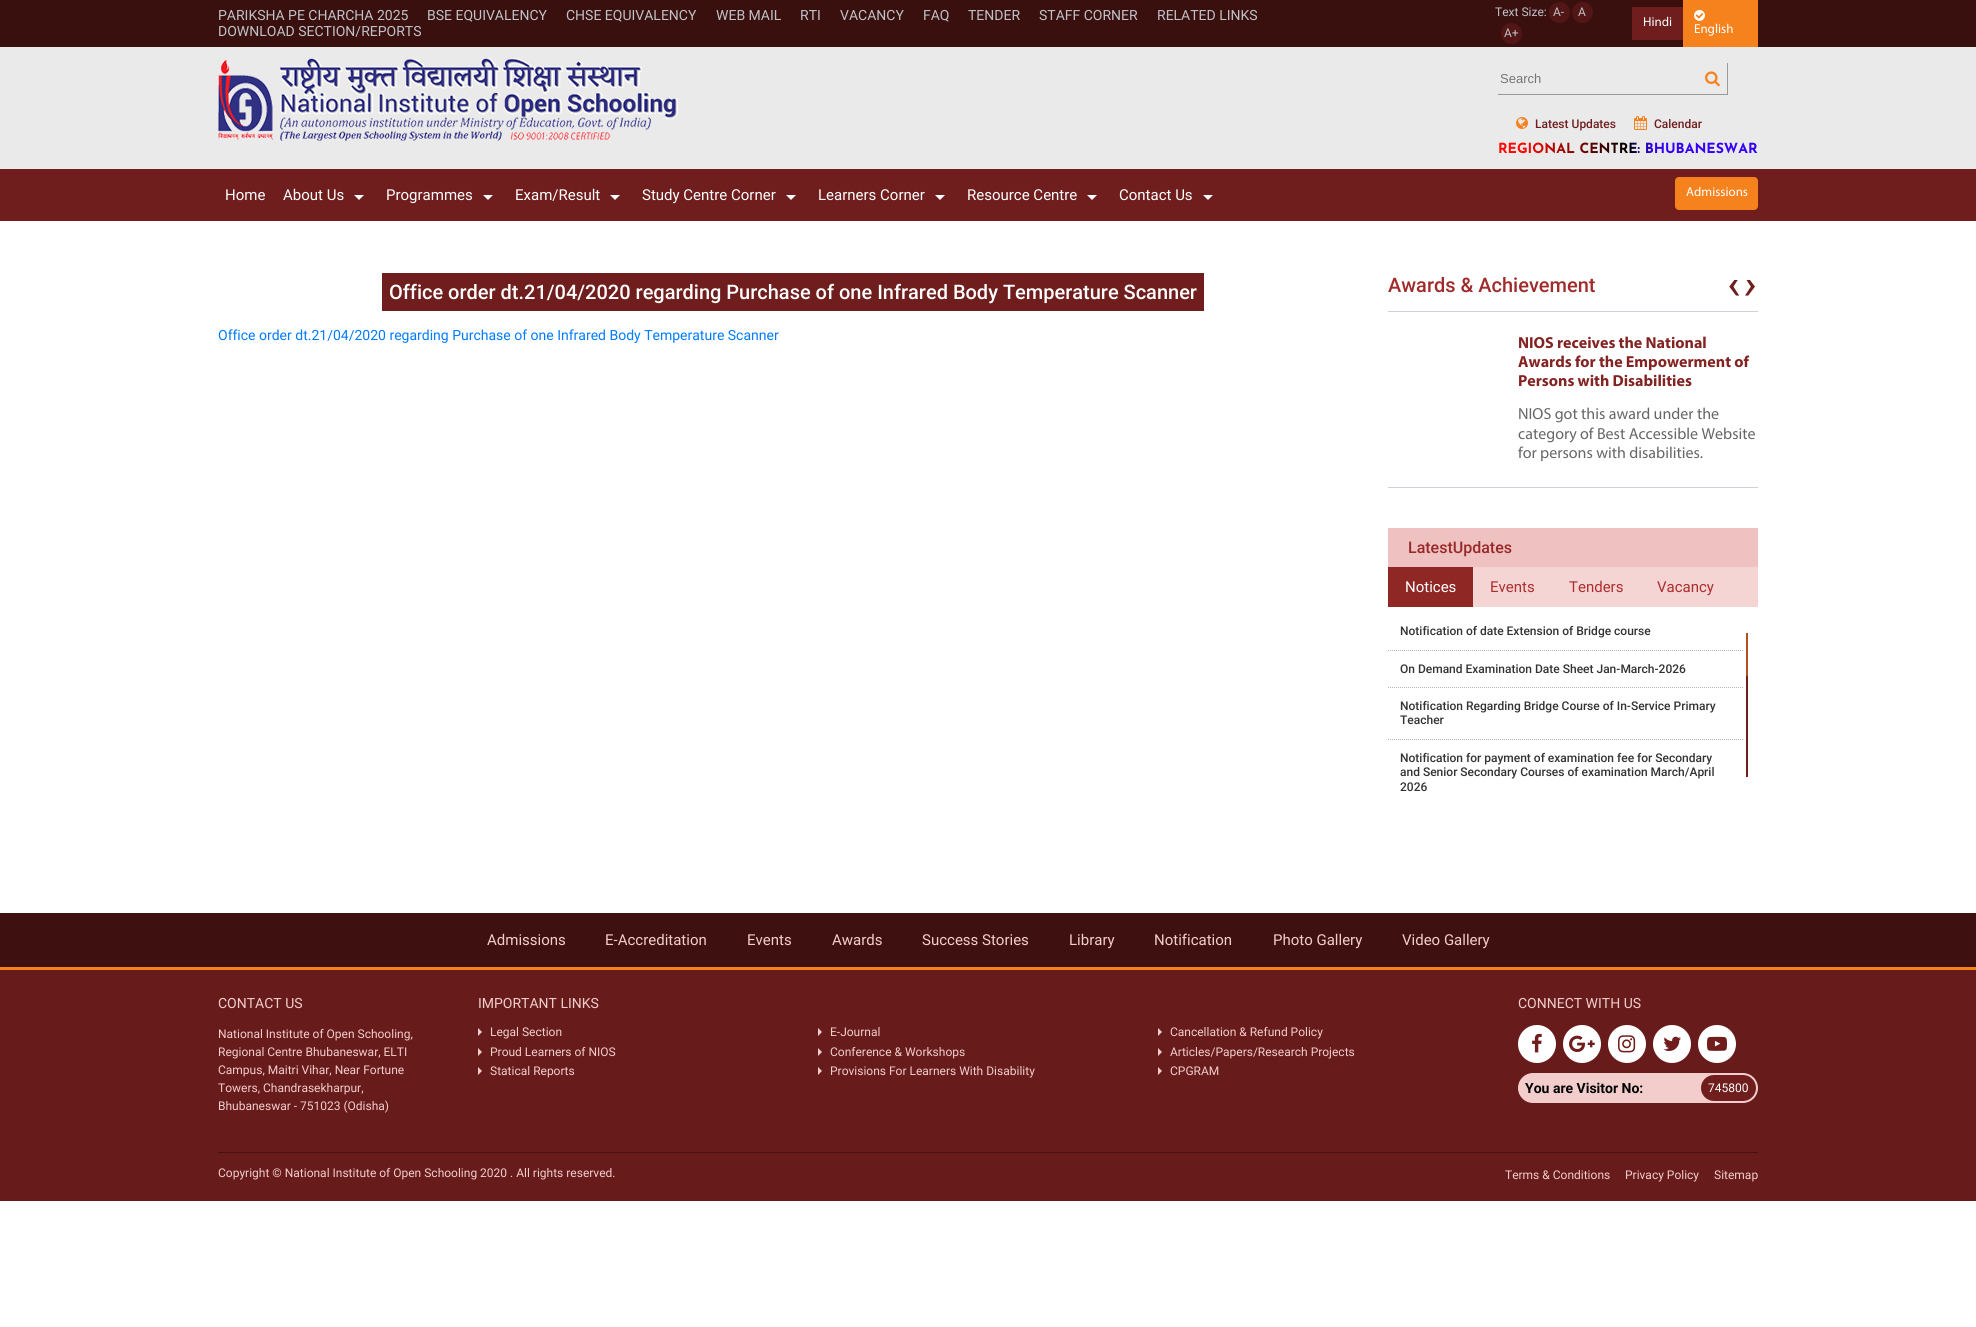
import math
import cairo


def use_color(cr, r, g, b):
  cr.set_source_rgb(r / 255, g / 255, b / 255)

def text(cr, x, y, s, family, size, color, bold=False, italic=False):
  cr.select_font_face(family, cairo.FONT_SLANT_ITALIC if italic else cairo.FONT_SLANT_NORMAL, cairo.FONT_WEIGHT_BOLD if bold else cairo.FONT_WEIGHT_NORMAL)
  cr.set_font_size(size)
  use_color(cr, *color)
  cr.move_to(x, y)
  cr.show_text(s)

def box(cr, x, y, w, h, *color):
  use_color(cr, *color)
  cr.rectangle(x, y, w, h)
  cr.fill()

def round_rect(cr, x, y, w, h, r):
  cr.new_sub_path()
  for i, (u, v) in enumerate([(x + w - r, y + h - r), (x + r, y + h - r), (x + r, y + r), (x + w - r, y + r)]):
    cr.arc(u, v, r, i * math.pi / 2, (i + 1) * math.pi / 2)
  cr.close_path()

def picture(cr, path, x, y, w, h):
  cr.save()
  cr.set_source_surface(cairo.ImageSurface.create_from_png(path), x, y)
  cr.rectangle(x, y, w, h)
  cr.fill()
  cr.restore()

def draw(cr):
  use_color(cr, 255, 255, 255)
  cr.paint()
  box(cr, 0, 47, 1976, 122, 234, 234, 234)
  box(cr, 0, 0, 1976, 47, 58, 16, 15)
  use_color(cr, 83, 22, 22)
  cr.arc(1559.5, 12.5, 10.5, 0, 2 * math.pi)
  cr.fill()
  cr.arc(1582.5, 12.5, 10.5, 0, 2 * math.pi)
  cr.fill()
  cr.arc(1511.5, 33.5, 10.5, 0, 2 * math.pi)
  cr.fill()
  box(cr, 1632, 7, 51, 33, 111, 30, 29)
  box(cr, 1683, 0, 75, 47, 246, 130, 30)
  picture(cr, "img_01.png", 1694, 9, 11, 12)
  picture(cr, "img_02.png", 218, 58, 460, 83)
  box(cr, 1727, 63, 1, 32, 153, 153, 153)
  box(cr, 1498, 94, 230, 1, 153, 153, 153)
  picture(cr, "img_03.png", 1705, 71, 15, 16)
  picture(cr, "img_04.png", 1516, 117, 12, 12)
  picture(cr, "img_05.png", 1634, 116, 13, 14)
  box(cr, 0, 169, 1976, 52, 111, 30, 29)
  use_color(cr, 255, 255, 255)
  cr.new_path()
  cr.move_to(354, 195)
  cr.line_to(364, 195)
  cr.line_to(359, 200)
  cr.close_path()
  cr.fill()
  cr.new_path()
  cr.move_to(483, 195)
  cr.line_to(493, 195)
  cr.line_to(488, 200)
  cr.close_path()
  cr.fill()
  cr.new_path()
  cr.move_to(610, 195)
  cr.line_to(620, 195)
  cr.line_to(615, 200)
  cr.close_path()
  cr.fill()
  cr.new_path()
  cr.move_to(786, 195)
  cr.line_to(796, 195)
  cr.line_to(791, 200)
  cr.close_path()
  cr.fill()
  cr.new_path()
  cr.move_to(935, 195)
  cr.line_to(945, 195)
  cr.line_to(940, 200)
  cr.close_path()
  cr.fill()
  cr.new_path()
  cr.move_to(1087, 195)
  cr.line_to(1097, 195)
  cr.line_to(1092, 200)
  cr.close_path()
  cr.fill()
  cr.new_path()
  cr.move_to(1203, 195)
  cr.line_to(1213, 195)
  cr.line_to(1208, 200)
  cr.close_path()
  cr.fill()
  use_color(cr, 246, 130, 30)
  round_rect(cr, 1675, 177, 83, 33, 4)
  cr.fill()
  box(cr, 382, 273, 822, 38, 111, 30, 29)
  box(cr, 1388, 311, 370, 1, 204, 210, 216)
  box(cr, 1388, 487, 370, 1, 204, 210, 216)
  box(cr, 1388, 528, 370, 39, 239, 193, 192)
  box(cr, 1473, 567, 285, 40, 244, 213, 212)
  box(cr, 1388, 567, 85, 40, 143, 39, 37)
  cr.new_path()
  cr.move_to(1388, 650.5)
  cr.line_to(1743, 650.5)
  use_color(cr, 174, 184, 193)
  cr.set_line_width(1)
  cr.set_dash([1, 1])
  cr.stroke()
  cr.new_path()
  cr.move_to(1388, 687.5)
  cr.line_to(1743, 687.5)
  cr.stroke()
  cr.new_path()
  cr.move_to(1388, 739.5)
  cr.line_to(1743, 739.5)
  cr.stroke()
  box(cr, 1746, 676, 2, 101, 111, 30, 29)
  box(cr, 1746, 633, 2, 43, 179, 80, 30)
  box(cr, 0, 970, 1976, 231, 103, 28, 27)
  box(cr, 0, 913, 1976, 54, 62, 17, 16)
  box(cr, 0, 967, 1976, 3, 246, 130, 30)
  box(cr, 218, 1152, 1540, 1, 71, 19, 18)
  use_color(cr, 242, 205, 204)
  cr.new_path()
  cr.move_to(478, 1036)
  cr.line_to(478, 1028)
  cr.line_to(482, 1032)
  cr.close_path()
  cr.fill()
  cr.new_path()
  cr.move_to(818, 1036)
  cr.line_to(818, 1028)
  cr.line_to(822, 1032)
  cr.close_path()
  cr.fill()
  cr.new_path()
  cr.move_to(1158, 1036)
  cr.line_to(1158, 1028)
  cr.line_to(1162, 1032)
  cr.close_path()
  cr.fill()
  cr.new_path()
  cr.move_to(478, 1056)
  cr.line_to(478, 1048)
  cr.line_to(482, 1052)
  cr.close_path()
  cr.fill()
  cr.new_path()
  cr.move_to(818, 1056)
  cr.line_to(818, 1048)
  cr.line_to(822, 1052)
  cr.close_path()
  cr.fill()
  cr.new_path()
  cr.move_to(1158, 1056)
  cr.line_to(1158, 1048)
  cr.line_to(1162, 1052)
  cr.close_path()
  cr.fill()
  cr.new_path()
  cr.move_to(478, 1075)
  cr.line_to(478, 1067)
  cr.line_to(482, 1071)
  cr.close_path()
  cr.fill()
  cr.new_path()
  cr.move_to(818, 1075)
  cr.line_to(818, 1067)
  cr.line_to(822, 1071)
  cr.close_path()
  cr.fill()
  cr.new_path()
  cr.move_to(1158, 1075)
  cr.line_to(1158, 1067)
  cr.line_to(1162, 1071)
  cr.close_path()
  cr.fill()
  use_color(cr, 255, 255, 255)
  cr.arc(1537, 1044, 19, 0, 2 * math.pi)
  cr.fill()
  picture(cr, "img_06.png", 1532, 1033, 10, 20)
  cr.arc(1582, 1044, 19, 0, 2 * math.pi)
  cr.fill()
  picture(cr, "img_07.png", 1569, 1035, 26, 17)
  cr.arc(1627, 1044, 19, 0, 2 * math.pi)
  cr.fill()
  picture(cr, "img_08.png", 1618, 1035, 18, 18)
  cr.arc(1672, 1044, 19, 0, 2 * math.pi)
  cr.fill()
  picture(cr, "img_09.png", 1663, 1036, 18, 15)
  cr.arc(1717, 1044, 19, 0, 2 * math.pi)
  cr.fill()
  picture(cr, "img_10.png", 1707, 1036, 20, 15)
  use_color(cr, 242, 205, 204)
  round_rect(cr, 1518, 1073, 240, 30, 15)
  cr.fill()
  use_color(cr, 111, 30, 29)
  round_rect(cr, 1701, 1075, 55, 26, 13)
  cr.fill()
  text(cr, 218, 20, "PARIKSHA PE CHARCHA 2025", "Roboto", 14, (191, 194, 199))
  text(cr, 427, 20, "BSE EQUIVALENCY", "Roboto", 14, (191, 194, 199))
  text(cr, 566, 20, "CHSE EQUIVALENCY", "Roboto", 14, (191, 194, 199))
  text(cr, 716, 20, "WEB MAIL", "Roboto", 14, (191, 194, 199))
  text(cr, 800, 20, "RTI", "Roboto", 14, (191, 194, 199))
  text(cr, 840, 20, "VACANCY", "Roboto", 14, (191, 194, 199))
  text(cr, 923, 20, "FAQ", "Roboto", 14, (191, 194, 199))
  text(cr, 968, 20, "TENDER", "Roboto", 14, (191, 194, 199))
  text(cr, 1039, 20, "STAFF CORNER", "Roboto", 14, (191, 194, 199))
  text(cr, 1157, 20, "RELATED LINKS", "Roboto", 14, (191, 194, 199))
  text(cr, 218, 36, "DOWNLOAD SECTION/REPORTS", "Roboto", 14, (191, 194, 199))
  text(cr, 1495, 16, "Text Size:", "Roboto", 12, (191, 194, 199))
  text(cr, 1553, 16, "A-", "Roboto", 12, (191, 194, 199))
  text(cr, 1578, 16, "A", "Roboto", 12, (191, 194, 199))
  text(cr, 1504, 37, "A+", "Roboto", 12, (191, 194, 199))
  text(cr, 1643, 26, "Hindi", "Myriad", 13, (255, 255, 255))
  text(cr, 1694, 33, "English", "Myriad", 13, (255, 255, 255))
  text(cr, 1500, 83, "Search", "Liberation Sans", 13, (117, 117, 117))
  text(cr, 1535, 128, "Latest Updates", "Roboto Medium", 12, (111, 30, 29))
  text(cr, 1654, 128, "Calendar", "Roboto Medium", 12, (111, 30, 29))
  cr.select_font_face("Josefin Sans", cairo.FONT_SLANT_NORMAL, cairo.FONT_WEIGHT_BOLD)
  cr.set_font_size(14)
  gradient = cairo.LinearGradient(1498, 150, 1758, 150)
  gradient.add_color_stop_rgba(0.1, 1, 0.027, 0.016, 1)
  gradient.add_color_stop_rgba(0.5, 0, 0, 0, 1)
  gradient.add_color_stop_rgba(0.6, 0.208, 0, 0.973, 1)
  cr.set_source(gradient)
  cr.move_to(1498, 153)
  cr.show_text("REGIONAL CENTRE: BHUBANESWAR")
  text(cr, 225, 200, "Home", "Roboto", 15, (255, 255, 255))
  text(cr, 283, 200, "About Us", "Roboto", 15, (255, 255, 255))
  text(cr, 386, 200, "Programmes", "Roboto", 15, (255, 255, 255))
  text(cr, 515, 200, "Exam/Result", "Roboto", 15, (255, 255, 255))
  text(cr, 642, 200, "Study Centre Corner", "Roboto", 15, (255, 255, 255))
  text(cr, 818, 200, "Learners Corner", "Roboto", 15, (255, 255, 255))
  text(cr, 967, 200, "Resource Centre", "Roboto", 15, (255, 255, 255))
  text(cr, 1119, 200, "Contact Us", "Roboto", 15, (255, 255, 255))
  text(cr, 1686, 196, "Admissions", "Myriad", 13, (255, 255, 255))
  text(cr, 389, 299, "Office order dt.21/04/2020 regarding Purchase of one Infrared Body Temperature Scanner", "Roboto Medium", 20, (255, 255, 255))
  text(cr, 218, 340, "Office order dt.21/04/2020 regarding Purchase of one Infrared Body Temperature Scanner", "Roboto", 14, (0, 123, 255))
  text(cr, 1388, 292, "Awards & Achievement", "Roboto Medium", 20, (160, 43, 42))
  cr.save()
  cr.rectangle(1727, 280, 14, 20)
  cr.clip()
  text(cr, 1727, 299, "‹", "Roboto", 46, (111, 30, 29))
  cr.restore()
  cr.save()
  cr.rectangle(1743, 280, 14, 20)
  cr.clip()
  text(cr, 1743, 299, "›", "Roboto", 46, (111, 30, 29))
  cr.restore()
  text(cr, 1518, 348, "NIOS receives the National", "Myriad", 16, (131, 35, 34), bold=True)
  text(cr, 1518, 367, "Awards for the Empowerment of", "Myriad", 16, (131, 35, 34), bold=True)
  text(cr, 1518, 386, "Persons with Disabilities", "Myriad", 16, (131, 35, 34), bold=True)
  text(cr, 1518, 419, "NIOS got this award under the", "Myriad", 16, (102, 102, 102))
  text(cr, 1518, 439, "category of Best Accessible Website", "Myriad", 16, (102, 102, 102))
  text(cr, 1518, 458, "for persons with disabilities.", "Myriad", 16, (102, 102, 102))
  text(cr, 1408, 553, "LatestUpdates", "Roboto Medium", 16, (151, 41, 40))
  text(cr, 1405, 592, "Notices", "Roboto", 15, (255, 255, 255))
  text(cr, 1490, 592, "Events", "Roboto", 15, (172, 46, 45))
  text(cr, 1569, 592, "Tenders", "Roboto", 15, (172, 46, 45))
  text(cr, 1657, 592, "Vacancy", "Roboto", 15, (172, 46, 45))
  text(cr, 1400, 635, "Notification of date Extension of Bridge course", "Roboto Medium", 12, (51, 51, 51))
  text(cr, 1400, 673, "On Demand Examination Date Sheet Jan-March-2026", "Roboto Medium", 12, (51, 51, 51))
  text(cr, 1400, 710, "Notification Regarding Bridge Course of In-Service Primary", "Roboto Medium", 12, (51, 51, 51))
  text(cr, 1400, 724, "Teacher", "Roboto Medium", 12, (51, 51, 51))
  text(cr, 1400, 762, "Notification for payment of examination fee for Secondary", "Roboto Medium", 12, (51, 51, 51))
  text(cr, 1400, 776, "and Senior Secondary Courses of examination March/April", "Roboto Medium", 12, (51, 51, 51))
  text(cr, 1400, 791, "2026", "Roboto Medium", 12, (51, 51, 51))
  text(cr, 487, 945, "Admissions", "Roboto", 15, (242, 205, 204))
  text(cr, 605, 945, "E-Accreditation", "Roboto", 15, (242, 205, 204))
  text(cr, 747, 945, "Events", "Roboto", 15, (242, 205, 204))
  text(cr, 832, 945, "Awards", "Roboto", 15, (242, 205, 204))
  text(cr, 922, 945, "Success Stories", "Roboto", 15, (242, 205, 204))
  text(cr, 1069, 945, "Library", "Roboto", 15, (242, 205, 204))
  text(cr, 1154, 945, "Notification", "Roboto", 15, (242, 205, 204))
  text(cr, 1273, 945, "Photo Gallery", "Roboto", 15, (242, 205, 204))
  text(cr, 1402, 945, "Video Gallery", "Roboto", 15, (242, 205, 204))
  text(cr, 218, 1008, "CONTACT US", "Roboto", 14, (242, 205, 204))
  text(cr, 218, 1038, "National Institute of Open Schooling,", "Roboto", 12, (242, 205, 204))
  text(cr, 218, 1056, "Regional Centre Bhubaneswar, ELTI", "Roboto", 12, (242, 205, 204))
  text(cr, 218, 1074, "Campus, Maitri Vihar, Near Fortune", "Roboto", 12, (242, 205, 204))
  text(cr, 218, 1092, "Towers, Chandrasekharpur,", "Roboto", 12, (242, 205, 204))
  text(cr, 218, 1110, "Bhubaneswar - 751023 (Odisha)", "Roboto", 12, (242, 205, 204))
  text(cr, 478, 1008, "IMPORTANT LINKS", "Roboto", 14, (242, 205, 204))
  text(cr, 490, 1036, "Legal Section", "Roboto", 12, (242, 205, 204))
  text(cr, 830, 1036, "E-Journal", "Roboto", 12, (242, 205, 204))
  text(cr, 1170, 1036, "Cancellation & Refund Policy", "Roboto", 12, (242, 205, 204))
  text(cr, 490, 1056, "Proud Learners of NIOS", "Roboto", 12, (242, 205, 204))
  text(cr, 830, 1056, "Conference & Workshops", "Roboto", 12, (242, 205, 204))
  text(cr, 1170, 1056, "Articles/Papers/Research Projects", "Roboto", 12, (242, 205, 204))
  text(cr, 490, 1075, "Statical Reports", "Roboto", 12, (242, 205, 204))
  text(cr, 830, 1075, "Provisions For Learners With Disability", "Roboto", 12, (242, 205, 204))
  text(cr, 1170, 1075, "CPGRAM", "Roboto", 12, (242, 205, 204))
  text(cr, 1518, 1008, "CONNECT WITH US", "Roboto", 14, (242, 205, 204))
  text(cr, 1525, 1093, "You are Visitor No:", "Roboto", 14, (0, 0, 0), bold=True)
  text(cr, 1708, 1092, "745800", "Roboto", 12, (255, 255, 255))
  text(cr, 218, 1177, "Copyright © National Institute of Open Schooling 2020 . All rights reserved.", "Roboto", 12, (242, 205, 204))
  text(cr, 1505, 1179, "Terms & Conditions", "Roboto", 12, (242, 205, 204))
  text(cr, 1625, 1179, "Privacy Policy", "Roboto", 12, (242, 205, 204))
  text(cr, 1714, 1179, "Sitemap", "Roboto", 12, (242, 205, 204))


surface = cairo.ImageSurface(cairo.FORMAT_RGB24, 1976, 1327)
cr = cairo.Context(surface)
options = cairo.FontOptions()
options.set_hint_metrics(cairo.HINT_METRICS_OFF)
options.set_hint_style(cairo.HINT_STYLE_NONE)
cr.set_font_options(options)
cr.set_miter_limit(4)
draw(cr)
surface.write_to_png("out.png")
